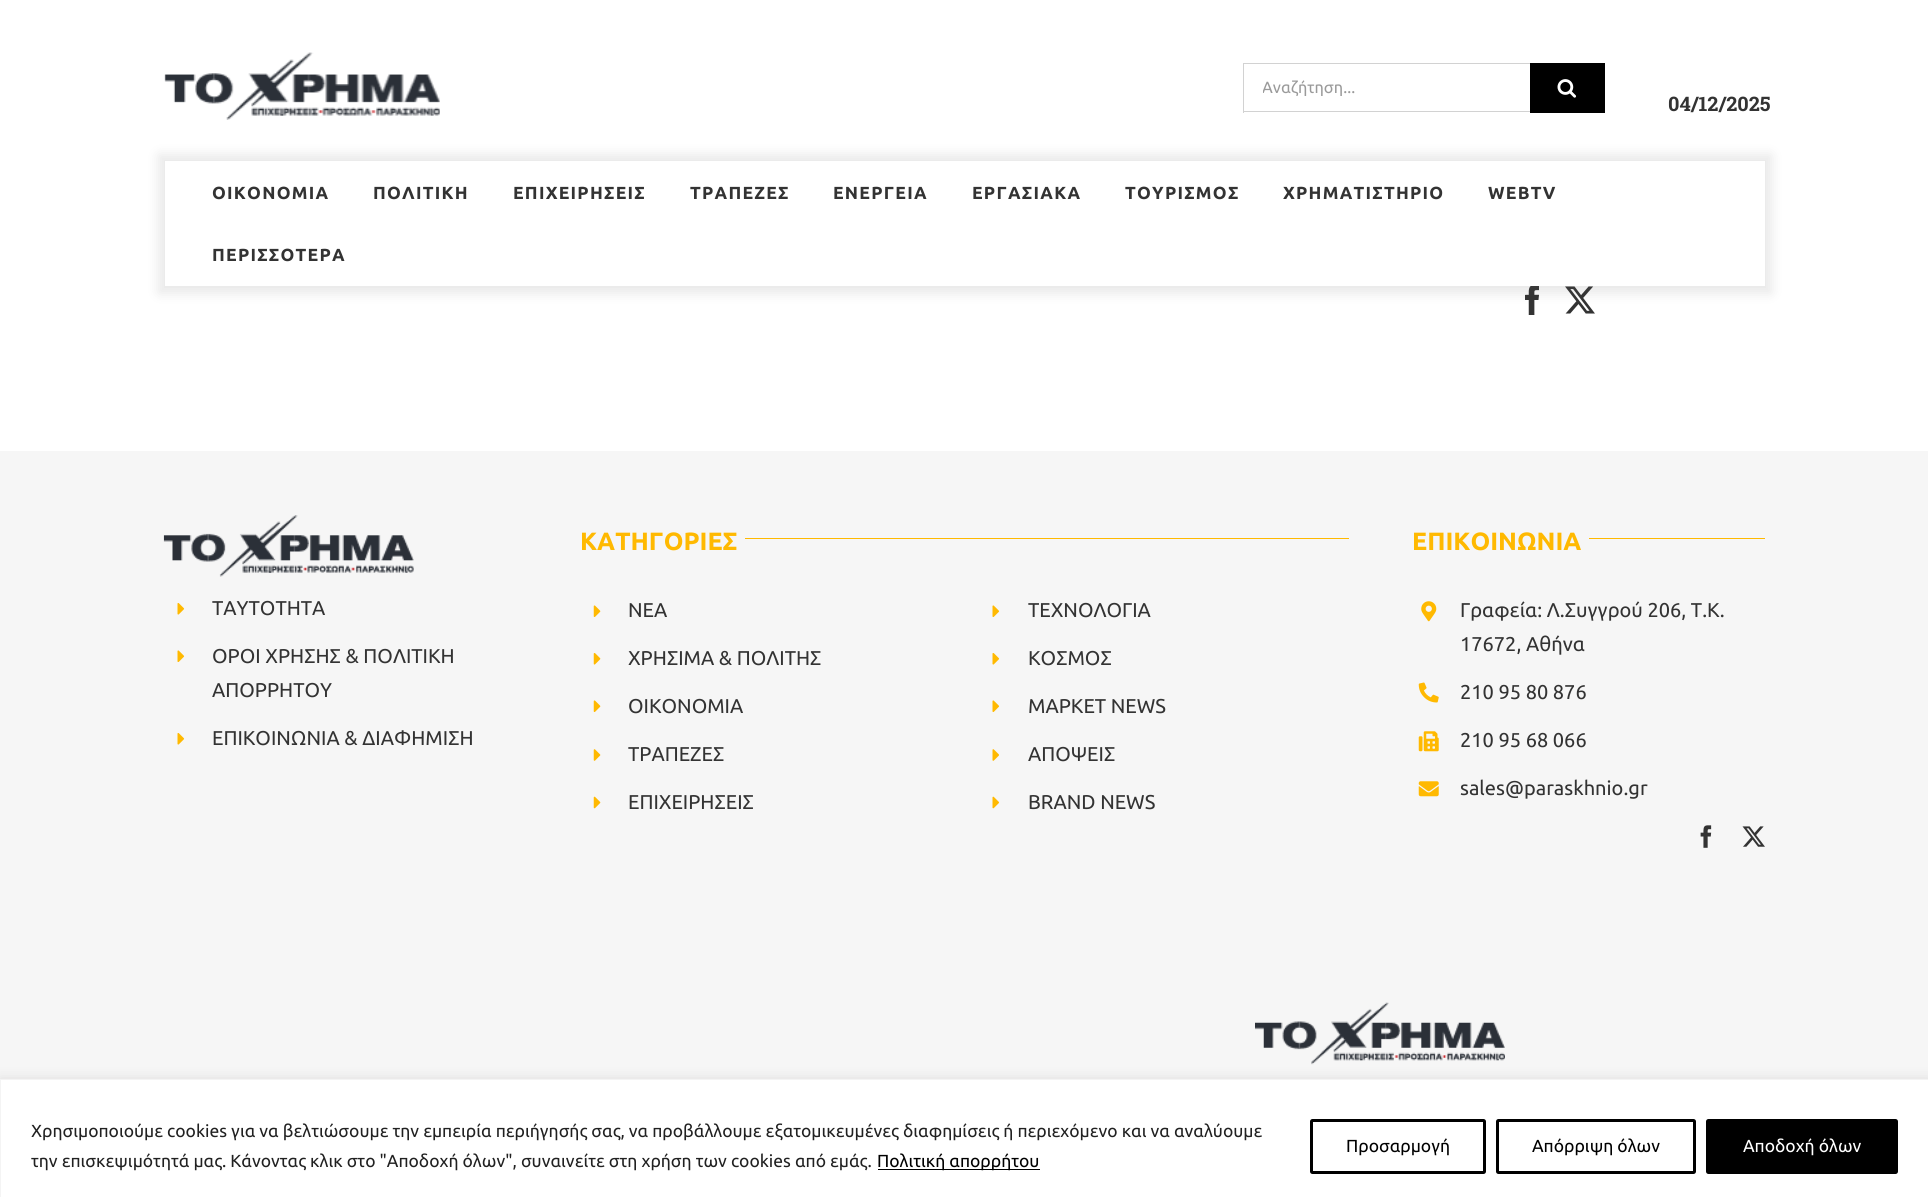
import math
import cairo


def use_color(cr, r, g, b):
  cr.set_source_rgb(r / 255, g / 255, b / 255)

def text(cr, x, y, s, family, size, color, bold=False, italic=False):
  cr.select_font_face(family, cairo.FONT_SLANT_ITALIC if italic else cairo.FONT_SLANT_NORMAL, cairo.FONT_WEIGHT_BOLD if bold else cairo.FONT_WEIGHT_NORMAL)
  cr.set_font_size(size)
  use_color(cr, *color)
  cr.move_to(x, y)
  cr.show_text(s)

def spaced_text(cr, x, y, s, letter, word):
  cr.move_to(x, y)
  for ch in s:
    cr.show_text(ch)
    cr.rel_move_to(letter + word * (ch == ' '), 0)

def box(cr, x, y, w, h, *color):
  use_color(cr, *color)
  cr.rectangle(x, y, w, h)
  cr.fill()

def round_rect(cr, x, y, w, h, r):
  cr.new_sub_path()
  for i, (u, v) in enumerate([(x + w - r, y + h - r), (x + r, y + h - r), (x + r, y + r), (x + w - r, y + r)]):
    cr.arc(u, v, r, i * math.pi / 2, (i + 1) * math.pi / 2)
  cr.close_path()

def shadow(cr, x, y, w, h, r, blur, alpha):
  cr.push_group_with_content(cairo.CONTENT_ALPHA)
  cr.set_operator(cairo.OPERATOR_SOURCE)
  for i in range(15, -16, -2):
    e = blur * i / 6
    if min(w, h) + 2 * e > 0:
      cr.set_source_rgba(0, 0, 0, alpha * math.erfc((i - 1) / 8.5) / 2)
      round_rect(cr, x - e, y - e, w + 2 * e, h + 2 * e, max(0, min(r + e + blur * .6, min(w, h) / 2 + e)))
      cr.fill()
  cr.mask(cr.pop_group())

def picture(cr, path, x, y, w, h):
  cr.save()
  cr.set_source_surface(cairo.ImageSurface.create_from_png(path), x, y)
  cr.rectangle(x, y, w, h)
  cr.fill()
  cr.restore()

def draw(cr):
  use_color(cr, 255, 255, 255)
  cr.paint()
  picture(cr, "img_01.png", 164, 52, 276, 68)
  box(cr, 1243, 63, 287, 1, 210, 210, 210)
  box(cr, 1243, 111, 287, 1, 210, 210, 210)
  box(cr, 1243, 63, 1, 50, 210, 210, 210)
  box(cr, 1530, 63, 75, 50, 0, 0, 0)
  picture(cr, "img_02.png", 1557, 79, 20, 19)
  picture(cr, "img_03.png", 1525, 286, 14, 29)
  picture(cr, "img_04.png", 1565, 286, 30, 28)
  cr.save()
  cr.set_fill_rule(cairo.FILL_RULE_EVEN_ODD)
  cr.new_path()
  cr.move_to(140, 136)
  cr.line_to(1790, 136)
  cr.line_to(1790, 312)
  cr.line_to(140, 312)
  cr.close_path()
  cr.move_to(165, 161)
  cr.line_to(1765, 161)
  cr.line_to(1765, 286)
  cr.line_to(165, 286)
  cr.close_path()
  cr.clip()
  use_color(cr, 98, 98, 98)
  shadow(cr, 159, 155, 1612, 138, 0, 6, 0.15)
  cr.restore()
  box(cr, 0, 451, 1928, 628, 246, 246, 246)
  picture(cr, "img_05.png", 163, 515, 251, 62)
  picture(cr, "img_06.png", 177, 603, 8, 12)
  picture(cr, "img_07.png", 177, 650, 8, 12)
  picture(cr, "img_06.png", 177, 733, 8, 12)
  box(cr, 745, 538, 604, 1, 255, 185, 1)
  picture(cr, "img_08.png", 593, 605, 8, 12)
  picture(cr, "img_09.png", 593, 653, 8, 12)
  picture(cr, "img_08.png", 593, 700, 8, 12)
  picture(cr, "img_10.png", 593, 749, 8, 12)
  picture(cr, "img_11.png", 593, 796, 8, 13)
  picture(cr, "img_07.png", 992, 605, 8, 12)
  picture(cr, "img_06.png", 992, 653, 8, 12)
  picture(cr, "img_07.png", 992, 700, 8, 12)
  picture(cr, "img_12.png", 992, 749, 7, 12)
  picture(cr, "img_13.png", 992, 796, 8, 13)
  box(cr, 1589, 538, 176, 1, 255, 185, 1)
  picture(cr, "img_14.png", 1421, 601, 16, 21)
  picture(cr, "img_15.png", 1418, 682, 21, 21)
  picture(cr, "img_16.png", 1418, 731, 21, 21)
  picture(cr, "img_17.png", 1418, 781, 21, 16)
  picture(cr, "img_18.png", 1700, 825, 12, 23)
  picture(cr, "img_19.png", 1742, 826, 23, 21)
  picture(cr, "img_20.png", 1255, 1002, 250, 63)
  use_color(cr, 172, 171, 171)
  shadow(cr, 0, 1078, 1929, 118, 0, 6, 0.3)
  use_color(cr, 255, 255, 255)
  cr.rectangle(0.5, 1079.5, 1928, 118)
  cr.fill_preserve()
  use_color(cr, 244, 244, 244)
  cr.set_line_width(1)
  cr.stroke()
  box(cr, 878, 1169, 162, 1, 0, 0, 0)
  round_rect(cr, 1311.5, 1120.5, 173, 52, 1)
  cr.set_line_width(3)
  cr.stroke()
  round_rect(cr, 1497.5, 1120.5, 197, 52, 1)
  cr.stroke()
  round_rect(cr, 1707.5, 1120.5, 189, 52, 1)
  cr.fill_preserve()
  cr.stroke()
  cr.save()
  cr.rectangle(1263, 79, 232, 17)
  cr.clip()
  text(cr, 1262, 93, "Αναζήτηση...", "Ubuntu", 16.25, (154, 154, 154))
  cr.restore()
  text(cr, 1668, 111, "04/12/2025", "Roboto Slab", 20, (51, 51, 51), bold=True)
  cr.select_font_face("Ubuntu", cairo.FONT_SLANT_NORMAL, cairo.FONT_WEIGHT_BOLD)
  cr.set_font_size(17.5)
  spaced_text(cr, 212, 199, "ΟΙΚΟΝΟΜΙΑ", 1.25, 0)
  spaced_text(cr, 373, 199, "ΠΟΛΙΤΙΚΗ", 1.25, 0)
  spaced_text(cr, 513, 199, "ΕΠΙΧΕΙΡΗΣΕΙΣ", 1.25, 0)
  spaced_text(cr, 690, 199, "ΤΡΑΠΕΖΕΣ", 1.25, 0)
  spaced_text(cr, 833, 199, "ΕΝΕΡΓΕΙΑ", 1.25, 0)
  spaced_text(cr, 972, 199, "ΕΡΓΑΣΙΑΚΑ", 1.25, 0)
  spaced_text(cr, 1125, 199, "ΤΟΥΡΙΣΜΟΣ", 1.25, 0)
  spaced_text(cr, 1283, 199, "ΧΡΗΜΑΤΙΣΤΗΡΙΟ", 1.25, 0)
  spaced_text(cr, 1488, 199, "WEBTV", 1.25, 0)
  spaced_text(cr, 212, 261, "ΠΕΡΙΣΣΟΤΕΡΑ", 1.25, 0)
  text(cr, 212, 615, "ΤΑΥΤΟΤΗΤΑ", "Ubuntu", 20, (51, 51, 51))
  text(cr, 212, 663, "ΟΡΟΙ ΧΡΗΣΗΣ & ΠΟΛΙΤΙΚΗ", "Ubuntu", 20, (51, 51, 51))
  text(cr, 212, 697, "ΑΠΟΡΡΗΤΟΥ", "Ubuntu", 20, (51, 51, 51))
  text(cr, 212, 745, "ΕΠΙΚΟΙΝΩΝΙΑ & ΔΙΑΦΗΜΙΣΗ", "Ubuntu", 20, (51, 51, 51))
  text(cr, 580, 550, "ΚΑΤΗΓΟΡΙΕΣ", "Ubuntu", 25, (255, 185, 1), bold=True)
  text(cr, 628, 617, "NEA", "Ubuntu", 20, (51, 51, 51))
  text(cr, 628, 665, "ΧΡΗΣΙΜΑ & ΠΟΛΙΤΗΣ", "Ubuntu", 20, (51, 51, 51))
  text(cr, 628, 713, "ΟΙΚΟΝΟΜΙΑ", "Ubuntu", 20, (51, 51, 51))
  text(cr, 628, 761, "ΤΡΑΠΕΖΕΣ", "Ubuntu", 20, (51, 51, 51))
  text(cr, 628, 809, "ΕΠΙΧΕΙΡΗΣΕΙΣ", "Ubuntu", 20, (51, 51, 51))
  text(cr, 1028, 617, "ΤΕΧΝΟΛΟΓΙΑ", "Ubuntu", 20, (51, 51, 51))
  text(cr, 1028, 665, "ΚΟΣΜΟΣ", "Ubuntu", 20, (51, 51, 51))
  text(cr, 1028, 713, "ΜΑΡΚΕΤ NEWS", "Ubuntu", 20, (51, 51, 51))
  text(cr, 1028, 761, "ΑΠΟΨΕΙΣ", "Ubuntu", 20, (51, 51, 51))
  text(cr, 1028, 809, "BRAND NEWS", "Ubuntu", 20, (51, 51, 51))
  text(cr, 1412, 550, "ΕΠΙΚΟΙΝΩΝΙΑ", "Ubuntu", 25, (255, 185, 1), bold=True)
  text(cr, 1460, 617, "Γραφεία: Λ.Συγγρού 206, Τ.Κ.", "Ubuntu", 20, (51, 51, 51))
  text(cr, 1460, 651, "17672, Αθήνα", "Ubuntu", 20, (51, 51, 51))
  text(cr, 1460, 699, "210 95 80 876", "Ubuntu", 20, (51, 51, 51))
  text(cr, 1460, 747, "210 95 68 066", "Ubuntu", 20, (51, 51, 51))
  text(cr, 1460, 795, "sales@paraskhnio.gr", "Ubuntu", 20, (51, 51, 51))
  text(cr, 31, 1137, "Χρησιμοποιούμε cookies για να βελτιώσουμε την εμπειρία περιήγησής σας, να προβάλλουμε εξατομικευμένες διαφημίσεις ή περιεχόμενο και να αναλύουμε", "Ubuntu", 17.5, (33, 33, 33))
  text(cr, 31, 1167, "την επισκεψιμότητά μας. Κάνοντας κλικ στο \"Αποδοχή όλων\", συναινείτε στη χρήση των cookies από εμάς.", "Ubuntu", 17.5, (33, 33, 33))
  text(cr, 877, 1167, "Πολιτική απορρήτου", "Ubuntu", 17.5, (0, 0, 0))
  text(cr, 1346, 1152, "Προσαρμογή", "Ubuntu", 17.5, (0, 0, 0))
  text(cr, 1532, 1152, "Απόρριψη όλων", "Ubuntu", 17.5, (0, 0, 0))
  text(cr, 1743, 1152, "Αποδοχή όλων", "Ubuntu", 17.5, (255, 255, 255))


surface = cairo.ImageSurface(cairo.FORMAT_RGB24, 1928, 1197)
cr = cairo.Context(surface)
options = cairo.FontOptions()
options.set_hint_metrics(cairo.HINT_METRICS_OFF)
options.set_hint_style(cairo.HINT_STYLE_NONE)
cr.set_font_options(options)
cr.set_miter_limit(4)
draw(cr)
surface.write_to_png("out.png")
